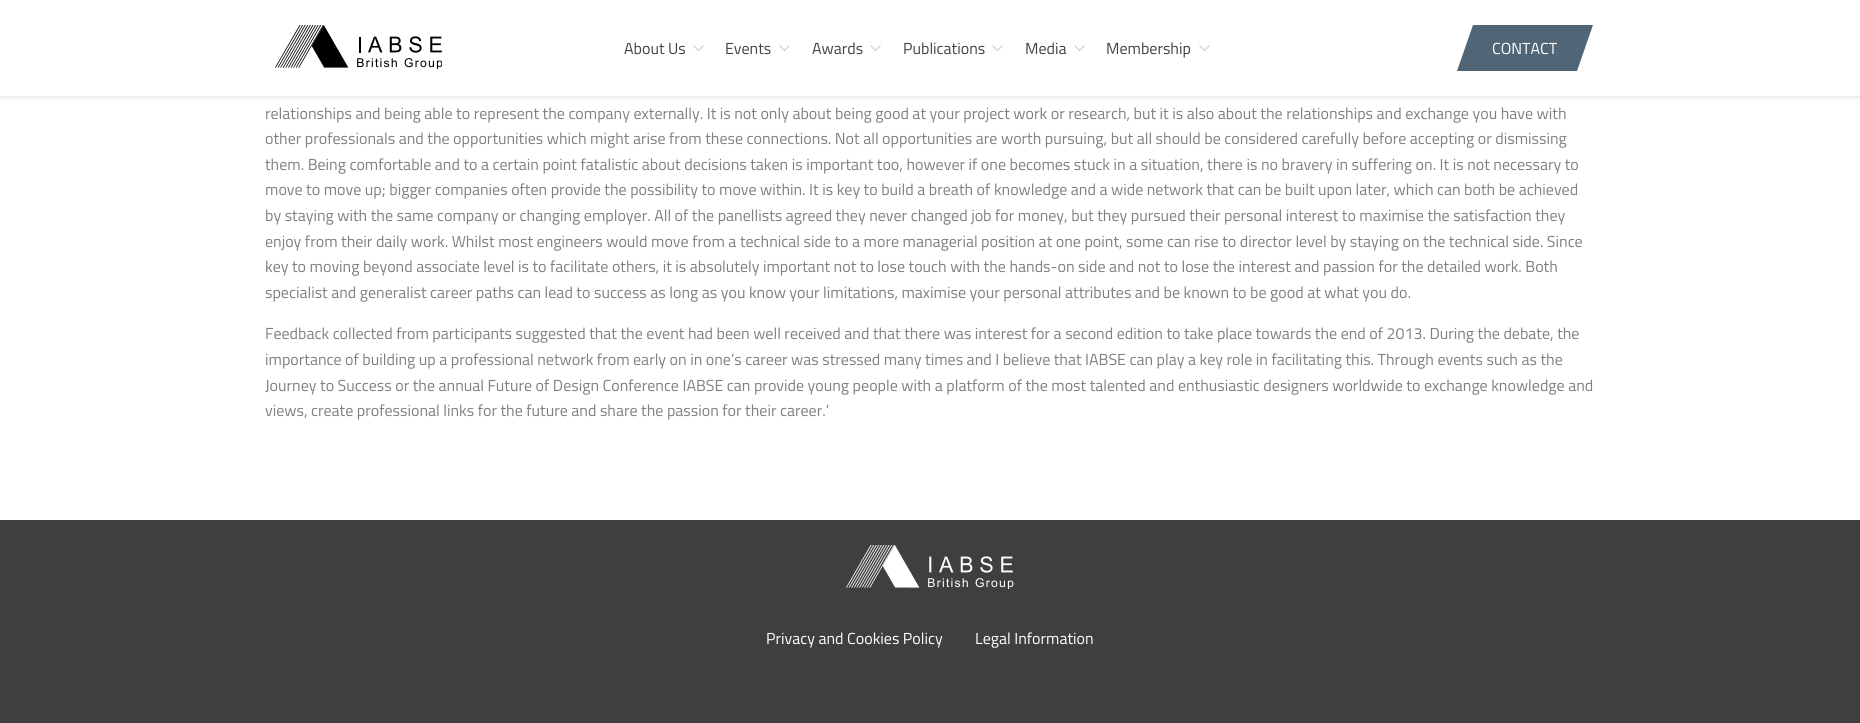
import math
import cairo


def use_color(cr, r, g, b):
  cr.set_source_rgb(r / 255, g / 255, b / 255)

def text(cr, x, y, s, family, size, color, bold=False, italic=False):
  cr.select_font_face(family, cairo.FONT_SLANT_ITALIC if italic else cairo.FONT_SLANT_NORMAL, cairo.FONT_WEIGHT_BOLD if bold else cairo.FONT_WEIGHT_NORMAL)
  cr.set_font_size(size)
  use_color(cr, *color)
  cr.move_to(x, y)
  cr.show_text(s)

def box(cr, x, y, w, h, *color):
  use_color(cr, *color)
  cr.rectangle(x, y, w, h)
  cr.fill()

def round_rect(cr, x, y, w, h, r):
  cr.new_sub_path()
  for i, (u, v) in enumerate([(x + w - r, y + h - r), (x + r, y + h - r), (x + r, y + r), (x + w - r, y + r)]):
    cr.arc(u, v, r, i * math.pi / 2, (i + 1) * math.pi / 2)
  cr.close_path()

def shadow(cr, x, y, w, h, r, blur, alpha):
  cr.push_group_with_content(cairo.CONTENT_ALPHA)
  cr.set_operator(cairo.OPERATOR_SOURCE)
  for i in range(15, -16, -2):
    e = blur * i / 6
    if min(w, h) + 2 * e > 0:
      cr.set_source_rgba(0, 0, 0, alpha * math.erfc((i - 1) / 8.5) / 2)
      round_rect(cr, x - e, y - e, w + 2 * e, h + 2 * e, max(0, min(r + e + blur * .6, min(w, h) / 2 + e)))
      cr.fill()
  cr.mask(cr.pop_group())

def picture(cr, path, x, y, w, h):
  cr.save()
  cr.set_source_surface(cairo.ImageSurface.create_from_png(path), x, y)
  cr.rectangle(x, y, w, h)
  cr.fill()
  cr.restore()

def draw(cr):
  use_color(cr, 255, 255, 255)
  cr.paint()
  use_color(cr, 0, 0, 0)
  shadow(cr, 0, 0, 1860, 96, 0, 3, 0.16)
  box(cr, 0, 0, 1860, 96, 255, 255, 255)
  picture(cr, "img_01.png", 275, 25, 167, 44)
  cr.new_path()
  cr.move_to(693.5, 45.5)
  cr.line_to(698.5, 50.5)
  cr.line_to(703.5, 45.5)
  use_color(cr, 198, 198, 198)
  cr.set_line_width(1)
  cr.stroke()
  cr.new_path()
  cr.move_to(779.5, 45.5)
  cr.line_to(784.5, 50.5)
  cr.line_to(789.5, 45.5)
  cr.stroke()
  cr.new_path()
  cr.move_to(870.5, 45.5)
  cr.line_to(875.5, 50.5)
  cr.line_to(880.5, 45.5)
  cr.stroke()
  cr.new_path()
  cr.move_to(992.5, 45.5)
  cr.line_to(997.5, 50.5)
  cr.line_to(1002.5, 45.5)
  cr.stroke()
  cr.new_path()
  cr.move_to(1074.5, 45.5)
  cr.line_to(1079.5, 50.5)
  cr.line_to(1084.5, 45.5)
  cr.stroke()
  cr.new_path()
  cr.move_to(1199.5, 45.5)
  cr.line_to(1204.5, 50.5)
  cr.line_to(1209.5, 45.5)
  cr.stroke()
  use_color(cr, 80, 102, 119)
  cr.new_path()
  cr.move_to(1473, 25)
  cr.line_to(1593, 25)
  cr.line_to(1577, 71)
  cr.line_to(1457, 71)
  cr.close_path()
  cr.fill()
  box(cr, 0, 520, 1860, 203, 61, 64, 62)
  picture(cr, "img_02.png", 846, 545, 168, 44)
  text(cr, 624, 54, "About Us", "Titillium Web", 16, (67, 67, 67))
  text(cr, 725, 54, "Events", "Titillium Web", 16, (67, 67, 67))
  text(cr, 812, 54, "Awards", "Titillium Web", 16, (67, 67, 67))
  text(cr, 903, 54, "Publications", "Titillium Web", 16, (67, 67, 67))
  text(cr, 1025, 54, "Media", "Titillium Web", 16, (67, 67, 67))
  text(cr, 1106, 54, "Membership", "Titillium Web", 16, (67, 67, 67))
  text(cr, 1492, 54, "CONTACT", "Titillium Web", 16, (255, 255, 255))
  text(cr, 265, 119, "relationships and being able to represent the company externally. It is not only about being good at your project work or research, but it is also about the relationships and exchange you have with", "Titillium Web", 16, (128, 128, 128))
  text(cr, 265, 144, "other professionals and the opportunities which might arise from these connections. Not all opportunities are worth pursuing, but all should be considered carefully before accepting or dismissing", "Titillium Web", 16, (128, 128, 128))
  text(cr, 265, 170, "them. Being comfortable and to a certain point fatalistic about decisions taken is important too, however if one becomes stuck in a situation, there is no bravery in suffering on. It is not necessary to", "Titillium Web", 16, (128, 128, 128))
  text(cr, 265, 195, "move to move up; bigger companies often provide the possibility to move within. It is key to build a breath of knowledge and a wide network that can be built upon later, which can both be achieved", "Titillium Web", 16, (128, 128, 128))
  text(cr, 265, 221, "by staying with the same company or changing employer. All of the panellists agreed they never changed job for money, but they pursued their personal interest to maximise the satisfaction they", "Titillium Web", 16, (128, 128, 128))
  text(cr, 265, 247, "enjoy from their daily work. Whilst most engineers would move from a technical side to a more managerial position at one point, some can rise to director level by staying on the technical side. Since", "Titillium Web", 16, (128, 128, 128))
  text(cr, 265, 272, "key to moving beyond associate level is to facilitate others, it is absolutely important not to lose touch with the hands-on side and not to lose the interest and passion for the detailed work. Both", "Titillium Web", 16, (128, 128, 128))
  text(cr, 265, 298, "specialist and generalist career paths can lead to success as long as you know your limitations, maximise your personal attributes and be known to be good at what you do.", "Titillium Web", 16, (128, 128, 128))
  text(cr, 265, 339, "Feedback collected from participants suggested that the event had been well received and that there was interest for a second edition to take place towards the end of 2013. During the debate, the", "Titillium Web", 16, (128, 128, 128))
  text(cr, 265, 365, "importance of building up a professional network from early on in one’s career was stressed many times and I believe that IABSE can play a key role in facilitating this. Through events such as the", "Titillium Web", 16, (128, 128, 128))
  text(cr, 265, 391, "Journey to Success or the annual Future of Design Conference IABSE can provide young people with a platform of the most talented and enthusiastic designers worldwide to exchange knowledge and", "Titillium Web", 16, (128, 128, 128))
  text(cr, 265, 416, "views, create professional links for the future and share the passion for their career.’", "Titillium Web", 16, (128, 128, 128))
  text(cr, 766, 644, "Privacy and Cookies Policy", "Titillium Web", 16, (255, 255, 255))
  text(cr, 975, 644, "Legal Information", "Titillium Web", 16, (255, 255, 255))


surface = cairo.ImageSurface(cairo.FORMAT_RGB24, 1860, 723)
cr = cairo.Context(surface)
options = cairo.FontOptions()
options.set_hint_metrics(cairo.HINT_METRICS_OFF)
options.set_hint_style(cairo.HINT_STYLE_NONE)
cr.set_font_options(options)
cr.set_miter_limit(4)
draw(cr)
surface.write_to_png("out.png")
